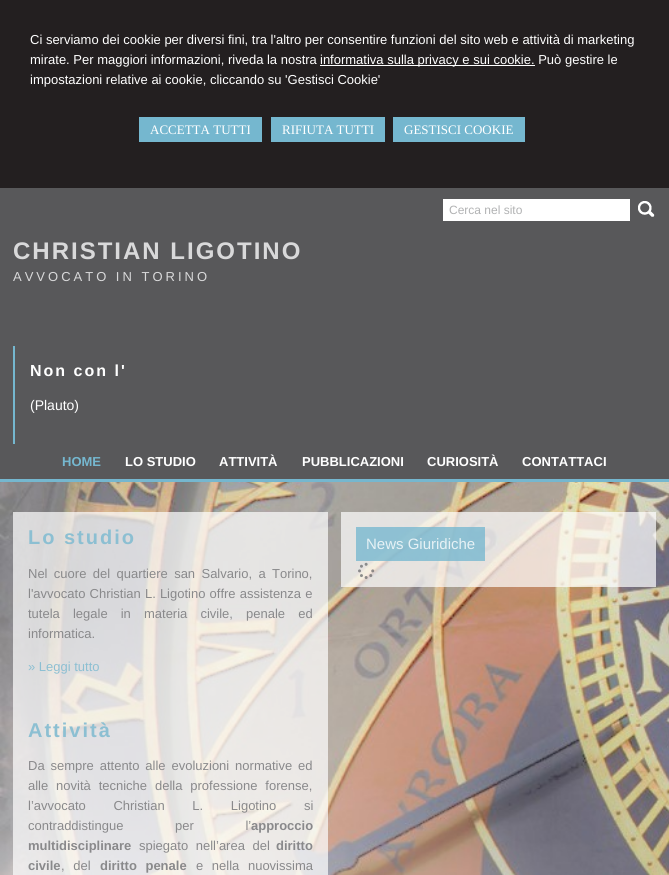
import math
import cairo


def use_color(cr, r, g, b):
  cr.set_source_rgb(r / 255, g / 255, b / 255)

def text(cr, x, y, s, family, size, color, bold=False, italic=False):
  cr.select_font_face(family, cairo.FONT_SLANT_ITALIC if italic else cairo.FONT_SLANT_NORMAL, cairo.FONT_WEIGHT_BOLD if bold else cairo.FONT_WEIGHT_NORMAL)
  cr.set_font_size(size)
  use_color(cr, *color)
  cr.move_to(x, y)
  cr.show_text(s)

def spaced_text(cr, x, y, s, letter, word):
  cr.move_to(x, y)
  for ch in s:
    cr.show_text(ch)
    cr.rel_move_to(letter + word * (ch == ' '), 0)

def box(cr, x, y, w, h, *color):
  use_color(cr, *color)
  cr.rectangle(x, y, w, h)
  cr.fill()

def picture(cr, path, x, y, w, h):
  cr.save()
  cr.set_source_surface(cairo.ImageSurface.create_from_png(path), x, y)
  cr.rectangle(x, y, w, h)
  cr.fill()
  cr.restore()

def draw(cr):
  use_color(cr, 255, 255, 255)
  cr.paint()
  picture(cr, "img_01.png", 0, 482, 669, 393)
  box(cr, 0, 0, 669, 188, 35, 31, 32)
  box(cr, 320, 65, 215, 1, 255, 255, 255)
  box(cr, 139, 117, 123, 25, 117, 183, 207)
  box(cr, 271, 117, 114, 25, 117, 183, 207)
  box(cr, 393, 117, 132, 25, 117, 183, 207)
  box(cr, 0, 188, 669, 291, 88, 88, 90)
  box(cr, 0, 479, 669, 3, 117, 183, 207)
  box(cr, 443, 199, 187, 22, 255, 255, 255)
  picture(cr, "img_02.png", 638, 201, 17, 16)
  box(cr, 13, 346, 2, 98, 117, 183, 207)
  cr.set_source_rgba(1, 1, 1, 0.7)
  cr.rectangle(13, 512, 315, 193)
  cr.fill()
  cr.rectangle(13, 705, 315, 170)
  cr.fill()
  cr.rectangle(341, 512, 315, 75)
  cr.fill()
  cr.set_source_rgba(0.459, 0.718, 0.812, 0.77)
  cr.rectangle(356, 527, 129, 34)
  cr.fill()
  picture(cr, "img_03.png", 358, 562, 17, 17)
  text(cr, 30, 44, "Ci serviamo dei cookie per diversi fini, tra l'altro per consentire funzioni del sito web e attività di marketing", "Liberation Sans", 13, (255, 255, 255))
  text(cr, 30, 64, "mirate. Per maggiori informazioni, riveda la nostra", "Liberation Sans", 13, (255, 255, 255))
  text(cr, 320, 64, "informativa sulla privacy e sui cookie. Può gestire le", "Liberation Sans", 13, (255, 255, 255))
  text(cr, 30, 84, "impostazioni relative ai cookie, cliccando su 'Gestisci Cookie'", "Liberation Sans", 13, (255, 255, 255))
  text(cr, 150, 134, "ACCETTA TUTTI", "Liberation Serif", 13, (255, 255, 255))
  text(cr, 282, 134, "RIFIUTA TUTTI", "Liberation Serif", 13, (255, 255, 255))
  text(cr, 404, 134, "GESTISCI COOKIE", "Liberation Serif", 13, (255, 255, 255))
  text(cr, 449, 214, "Cerca nel sito", "Liberation Sans", 12, (177, 178, 179))
  cr.select_font_face("Liberation Sans", cairo.FONT_SLANT_NORMAL, cairo.FONT_WEIGHT_BOLD)
  cr.set_font_size(24)
  use_color(cr, 217, 217, 218)
  spaced_text(cr, 13, 259, "CHRISTIAN LIGOTINO", 2, 0)
  cr.select_font_face("Liberation Sans")
  cr.set_font_size(13)
  spaced_text(cr, 13, 281, "AVVOCATO IN TORINO", 3, 0)
  cr.select_font_face("Liberation Sans", cairo.FONT_SLANT_NORMAL, cairo.FONT_WEIGHT_BOLD)
  cr.set_font_size(16)
  use_color(cr, 255, 255, 255)
  spaced_text(cr, 30, 376, "Non con l'", 2, 0)
  text(cr, 30, 410, "(Plauto)", "Liberation Sans", 14, (255, 255, 255))
  text(cr, 62, 466, "HOME", "Liberation Sans", 13, (117, 183, 207), bold=True)
  text(cr, 125, 466, "LO STUDIO", "Liberation Sans", 13, (255, 255, 255), bold=True)
  text(cr, 219, 466, "ATTIVITÀ", "Liberation Sans", 13, (255, 255, 255), bold=True)
  text(cr, 302, 466, "PUBBLICAZIONI", "Liberation Sans", 13, (255, 255, 255), bold=True)
  text(cr, 427, 466, "CURIOSITÀ", "Liberation Sans", 13, (255, 255, 255), bold=True)
  text(cr, 522, 466, "CONTATTACI", "Liberation Sans", 13, (255, 255, 255), bold=True)
  cr.set_font_size(20)
  use_color(cr, 140, 191, 210)
  spaced_text(cr, 28, 544, "Lo studio", 2, 0)
  cr.select_font_face("Liberation Sans")
  cr.set_font_size(13)
  use_color(cr, 137, 137, 139)
  spaced_text(cr, 28, 578, "Nel cuore del quartiere san Salvario, a Torino,", 0, 2.75)
  spaced_text(cr, 28, 598, "l'avvocato Christian L. Ligotino offre assistenza e", 0, 0.5)
  spaced_text(cr, 28, 618, "tutela legale in materia civile, penale ed", 0, 9.5)
  text(cr, 28, 638, "informatica.", "Liberation Sans", 13, (137, 137, 139))
  text(cr, 28, 671, "» Leggi tutto", "Liberation Sans", 13, (140, 191, 210))
  cr.select_font_face("Liberation Sans", cairo.FONT_SLANT_NORMAL, cairo.FONT_WEIGHT_BOLD)
  cr.set_font_size(20)
  spaced_text(cr, 28, 737, "Attività", 2, 0)
  cr.select_font_face("Liberation Sans")
  cr.set_font_size(13)
  use_color(cr, 137, 137, 139)
  spaced_text(cr, 28, 770, "Da sempre attento alle evoluzioni normative ed", 0, 2.25)
  spaced_text(cr, 28, 790, "alle novità tecniche della professione forense,", 0, 4.25)
  spaced_text(cr, 28, 810, "l’avvocato Christian L. Ligotino si", 0, 24)
  spaced_text(cr, 28, 830, "contraddistingue per l’", 0, 48)
  text(cr, 251, 830, "approccio", "Liberation Sans", 13, (137, 137, 139), bold=True)
  text(cr, 28, 850, "multidisciplinare", "Liberation Sans", 13, (137, 137, 139), bold=True)
  cr.select_font_face("Liberation Sans")
  spaced_text(cr, 139, 850, "spiegato nell’area del", 0, 4)
  text(cr, 276, 850, "diritto", "Liberation Sans", 13, (137, 137, 139), bold=True)
  text(cr, 28, 870, "civile", "Liberation Sans", 13, (137, 137, 139), bold=True)
  cr.select_font_face("Liberation Sans")
  spaced_text(cr, 61, 870, ", del", 0, 5)
  cr.select_font_face("Liberation Sans", cairo.FONT_SLANT_NORMAL, cairo.FONT_WEIGHT_BOLD)
  spaced_text(cr, 100, 870, "diritto penale", 0, 5)
  cr.select_font_face("Liberation Sans")
  spaced_text(cr, 196, 870, "e nella nuovissima", 0, 5)
  text(cr, 366, 549, "News Giuridiche", "Liberation Sans", 15, (230, 241, 245))


surface = cairo.ImageSurface(cairo.FORMAT_RGB24, 669, 875)
cr = cairo.Context(surface)
options = cairo.FontOptions()
options.set_hint_metrics(cairo.HINT_METRICS_OFF)
options.set_hint_style(cairo.HINT_STYLE_NONE)
cr.set_font_options(options)
cr.set_miter_limit(4)
draw(cr)
surface.write_to_png("out.png")
